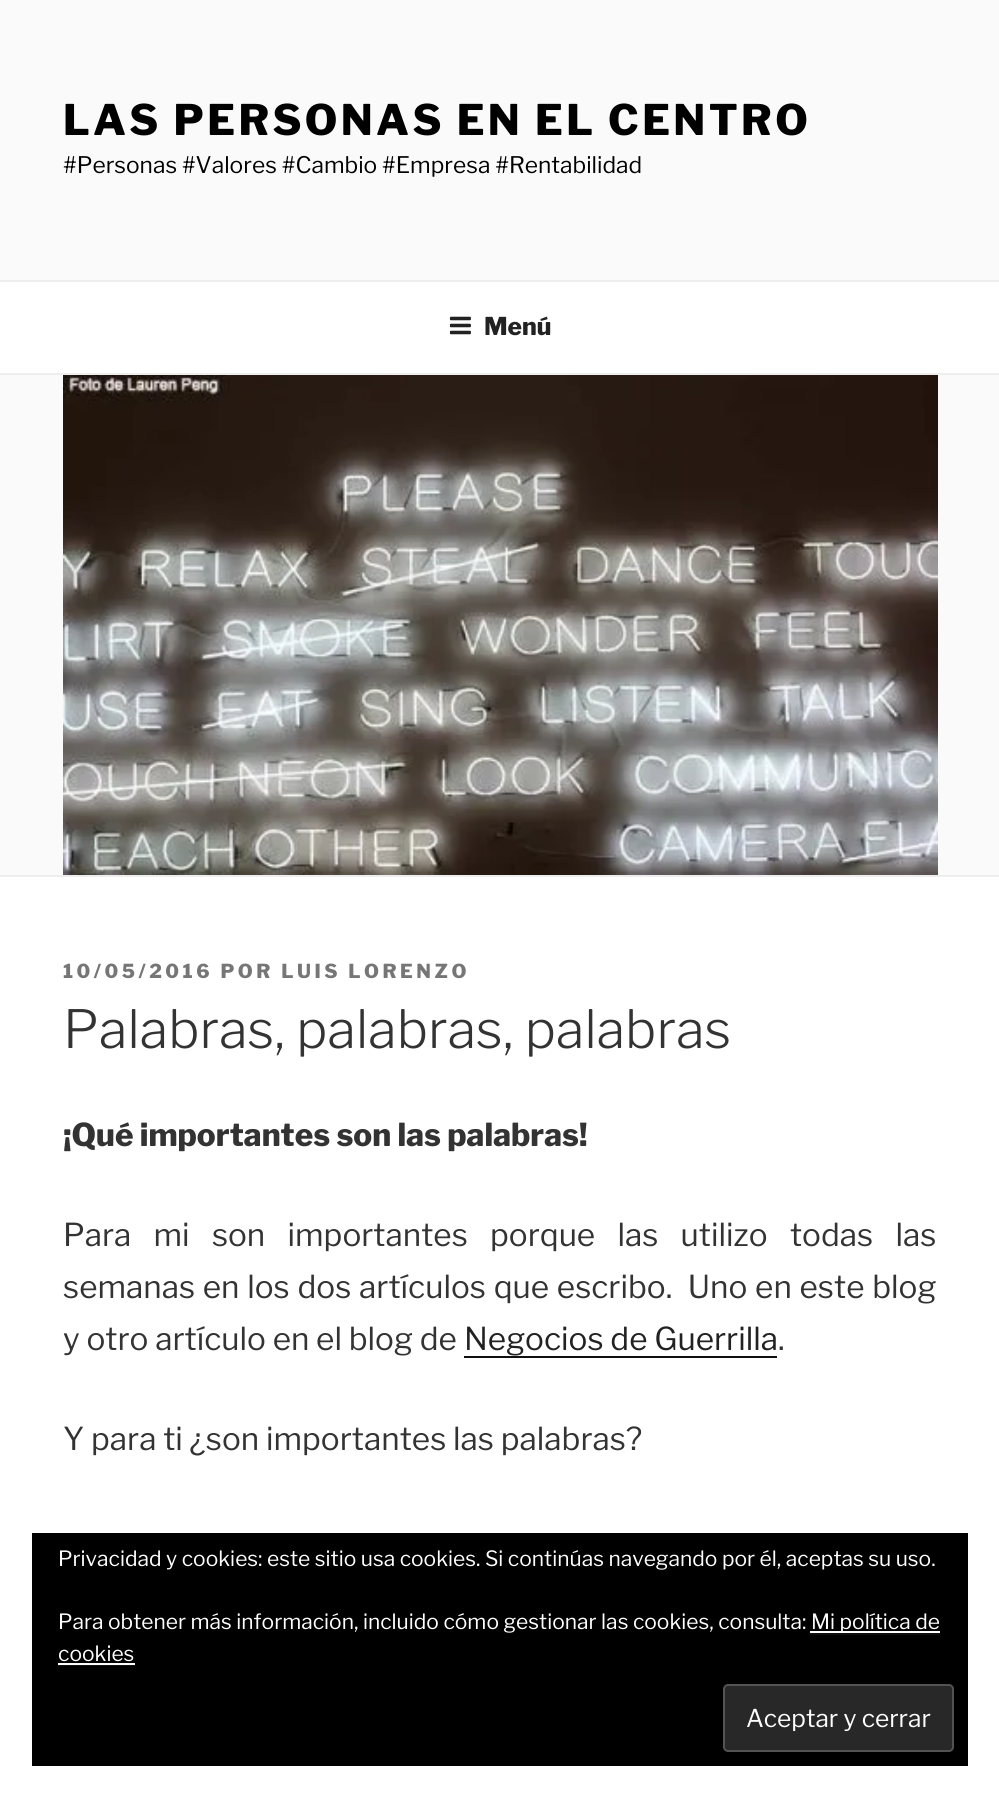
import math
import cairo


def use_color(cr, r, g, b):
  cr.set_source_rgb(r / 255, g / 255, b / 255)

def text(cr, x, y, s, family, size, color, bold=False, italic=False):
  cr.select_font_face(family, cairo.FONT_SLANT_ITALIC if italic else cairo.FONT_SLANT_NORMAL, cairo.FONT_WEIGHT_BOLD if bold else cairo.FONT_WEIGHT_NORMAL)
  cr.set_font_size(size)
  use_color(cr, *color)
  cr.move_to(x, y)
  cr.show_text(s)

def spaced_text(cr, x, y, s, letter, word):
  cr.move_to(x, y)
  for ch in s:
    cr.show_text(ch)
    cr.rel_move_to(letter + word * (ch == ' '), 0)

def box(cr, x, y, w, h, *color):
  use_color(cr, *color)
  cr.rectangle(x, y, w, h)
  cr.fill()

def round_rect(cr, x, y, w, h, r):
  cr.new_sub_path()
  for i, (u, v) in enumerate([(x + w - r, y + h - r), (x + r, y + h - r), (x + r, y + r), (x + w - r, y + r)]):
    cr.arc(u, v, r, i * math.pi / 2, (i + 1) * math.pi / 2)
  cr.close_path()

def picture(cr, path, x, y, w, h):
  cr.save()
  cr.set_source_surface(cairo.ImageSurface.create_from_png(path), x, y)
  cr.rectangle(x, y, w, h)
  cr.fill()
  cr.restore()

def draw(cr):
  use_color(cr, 255, 255, 255)
  cr.paint()
  box(cr, 0, 0, 999, 280, 250, 250, 250)
  box(cr, 0, 280, 999, 2, 238, 238, 238)
  box(cr, 0, 373, 999, 2, 238, 238, 238)
  picture(cr, "img_01.png", 449, 316, 22, 19)
  box(cr, 0, 375, 999, 500, 250, 250, 250)
  box(cr, 0, 875, 999, 2, 238, 238, 238)
  picture(cr, "img_02.png", 63, 375, 875, 500)
  box(cr, 464, 1356, 313, 2, 15, 15, 15)
  box(cr, 32, 1533, 936, 233, 0, 0, 0)
  box(cr, 810, 1633, 130, 2, 15, 15, 15)
  box(cr, 810, 1631, 130, 2, 255, 255, 255)
  box(cr, 58, 1665, 77, 1, 15, 15, 15)
  box(cr, 58, 1663, 77, 2, 255, 255, 255)
  use_color(cr, 40, 40, 40)
  round_rect(cr, 724, 1685, 229, 66, 4)
  cr.fill_preserve()
  use_color(cr, 83, 83, 83)
  cr.stroke()
  cr.select_font_face("Libre Franklin Thin")
  cr.set_font_size(42)
  use_color(cr, 0, 0, 0)
  spaced_text(cr, 63, 135, "LAS PERSONAS EN EL CENTRO", 3.35, 0)
  text(cr, 63, 173, "#Personas #Valores #Cambio #Empresa #Rentabilidad", "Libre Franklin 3 Thin", 22.75, (0, 0, 0))
  text(cr, 484, 335, "Menú", "Libre Franklin Thin", 24.5, (34, 34, 34))
  cr.set_font_size(19.25)
  use_color(cr, 118, 118, 118)
  spaced_text(cr, 63, 978, "10/05/2016 POR LUIS LORENZO", 3.5, 0)
  text(cr, 63, 1048, "Palabras, palabras, palabras", "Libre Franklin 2 Thin", 52.5, (51, 51, 51))
  text(cr, 63, 1146, "¡Qué importantes son las palabras!", "Libre Franklin Thin", 31.5, (51, 51, 51))
  cr.select_font_face("Libre Franklin 3 Thin")
  spaced_text(cr, 63, 1246, "Para mi son importantes porque las utilizo todas las", 0, 15.5)
  spaced_text(cr, 63, 1298, "semanas en los dos artículos que escribo.  Uno en este blog", 0, 1)
  text(cr, 63, 1350, "y otro artículo en el blog de", "Libre Franklin 3 Thin", 31.5, (51, 51, 51))
  text(cr, 464, 1350, "Negocios de Guerrilla", "Libre Franklin 3 Thin", 31.5, (34, 34, 34))
  text(cr, 778, 1350, ".", "Libre Franklin 3 Thin", 31.5, (51, 51, 51))
  text(cr, 63, 1450, "Y para ti ¿son importantes las palabras?", "Libre Franklin 3 Thin", 31.5, (51, 51, 51))
  text(cr, 58, 1566, "Privacidad y cookies: este sitio usa cookies. Si continúas navegando por él, aceptas su uso.", "Libre Franklin 3 Thin", 21, (255, 255, 255))
  text(cr, 58, 1629, "Para obtener más información, incluido cómo gestionar las cookies, consulta:", "Libre Franklin 3 Thin", 21, (255, 255, 255))
  text(cr, 811, 1629, "Mi política de", "Libre Franklin 3 Thin", 21, (255, 255, 255))
  text(cr, 58, 1661, "cookies", "Libre Franklin 3 Thin", 21, (255, 255, 255))
  text(cr, 746, 1727, "Aceptar y cerrar", "Libre Franklin 3 Thin", 24.5, (255, 255, 255))


surface = cairo.ImageSurface(cairo.FORMAT_RGB24, 999, 1797)
cr = cairo.Context(surface)
options = cairo.FontOptions()
options.set_hint_metrics(cairo.HINT_METRICS_OFF)
options.set_hint_style(cairo.HINT_STYLE_NONE)
cr.set_font_options(options)
cr.set_miter_limit(4)
draw(cr)
surface.write_to_png("out.png")
